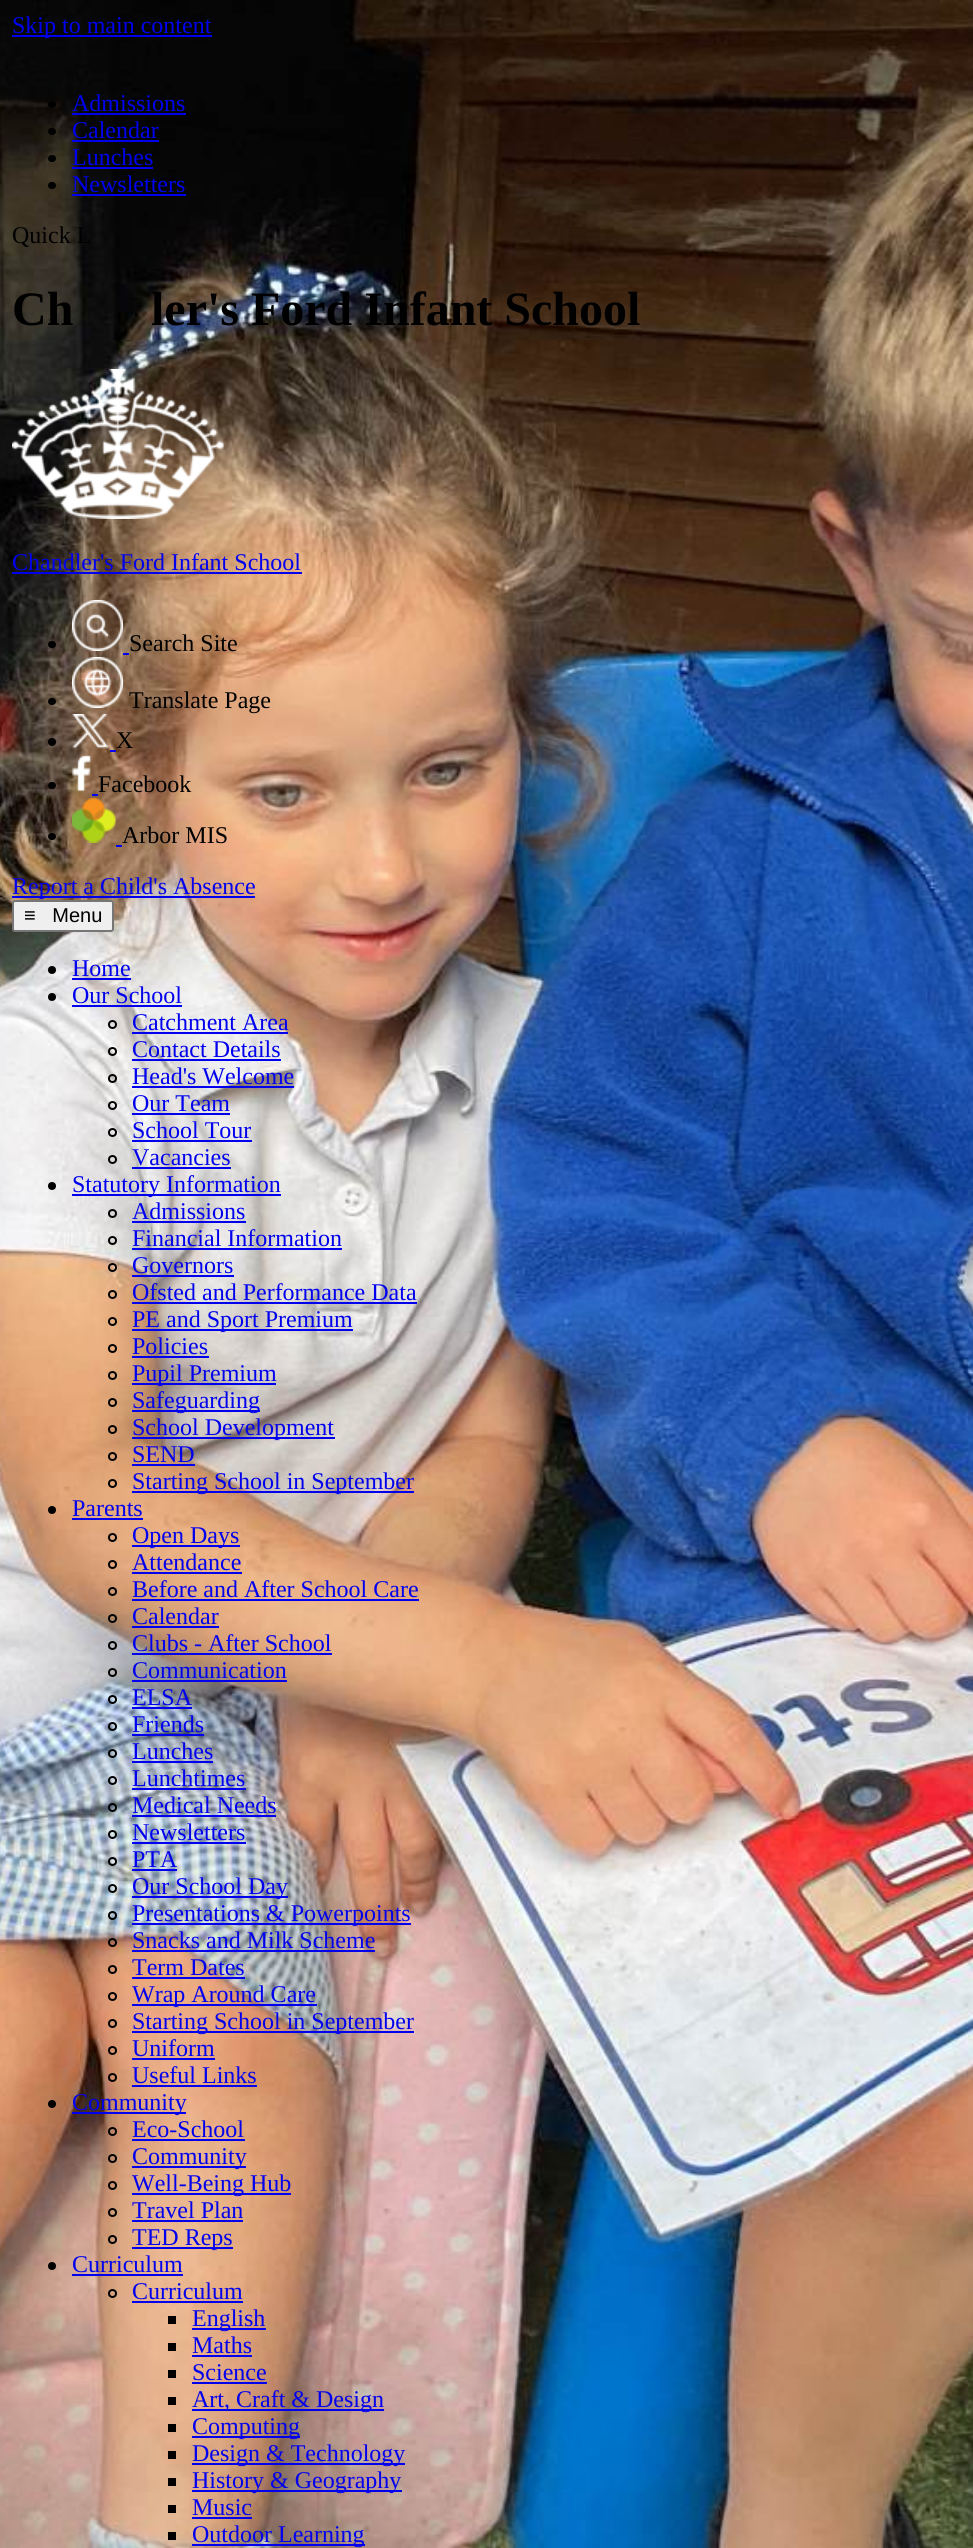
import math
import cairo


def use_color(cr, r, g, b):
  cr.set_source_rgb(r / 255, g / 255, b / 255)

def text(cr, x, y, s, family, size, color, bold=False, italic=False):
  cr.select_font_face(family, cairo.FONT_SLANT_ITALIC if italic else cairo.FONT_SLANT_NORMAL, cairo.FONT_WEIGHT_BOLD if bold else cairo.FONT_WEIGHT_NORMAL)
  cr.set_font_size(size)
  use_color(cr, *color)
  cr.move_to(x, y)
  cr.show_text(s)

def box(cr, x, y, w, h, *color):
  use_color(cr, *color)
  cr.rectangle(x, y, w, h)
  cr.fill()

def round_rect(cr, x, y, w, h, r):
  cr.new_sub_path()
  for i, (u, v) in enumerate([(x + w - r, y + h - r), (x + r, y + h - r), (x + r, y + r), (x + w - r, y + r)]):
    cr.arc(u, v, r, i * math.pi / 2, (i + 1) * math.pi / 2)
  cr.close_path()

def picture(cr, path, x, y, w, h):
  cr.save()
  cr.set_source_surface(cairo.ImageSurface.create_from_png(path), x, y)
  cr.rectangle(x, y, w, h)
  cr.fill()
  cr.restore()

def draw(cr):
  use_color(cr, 255, 255, 255)
  cr.paint()
  picture(cr, "img_01.png", 0, 0, 973, 2548)
  box(cr, 12, 35, 200, 2, 0, 0, 238)
  use_color(cr, 0, 0, 0)
  round_rect(cr, 48, 101, 8, 7, 3.5)
  cr.fill()
  box(cr, 72, 113, 114, 2, 0, 0, 238)
  use_color(cr, 0, 0, 0)
  round_rect(cr, 48, 128, 8, 7, 3.5)
  cr.fill()
  box(cr, 72, 140, 87, 2, 0, 0, 238)
  use_color(cr, 0, 0, 0)
  round_rect(cr, 48, 155, 8, 7, 3.5)
  cr.fill()
  box(cr, 72, 167, 81, 2, 0, 0, 238)
  use_color(cr, 0, 0, 0)
  round_rect(cr, 48, 182, 8, 7, 3.5)
  cr.fill()
  box(cr, 72, 194, 114, 2, 0, 0, 238)
  picture(cr, "img_02.png", 12, 369, 212, 150)
  box(cr, 12, 572, 290, 2, 0, 0, 238)
  use_color(cr, 0, 0, 0)
  round_rect(cr, 48, 641, 8, 7, 3.5)
  cr.fill()
  picture(cr, "img_03.png", 72, 600, 51, 51)
  box(cr, 123, 653, 6, 2, 0, 0, 238)
  use_color(cr, 0, 0, 0)
  round_rect(cr, 48, 698, 8, 7, 3.5)
  cr.fill()
  picture(cr, "img_04.png", 72, 657, 51, 51)
  cr.arc(52, 742, 4, 0, 2 * math.pi)
  cr.fill()
  picture(cr, "img_05.png", 72, 714, 37, 35)
  box(cr, 110, 750, 6, 2, 0, 0, 238)
  use_color(cr, 0, 0, 0)
  round_rect(cr, 48, 782, 8, 7, 3.5)
  cr.fill()
  picture(cr, "img_06.png", 72, 754, 20, 38)
  box(cr, 92, 794, 6, 2, 0, 0, 238)
  use_color(cr, 0, 0, 0)
  round_rect(cr, 48, 833, 8, 7, 3.5)
  cr.fill()
  picture(cr, "img_07.png", 72, 798, 44, 45)
  box(cr, 116, 845, 6, 2, 0, 0, 238)
  box(cr, 12, 896, 243, 2, 0, 0, 238)
  use_color(cr, 239, 239, 239)
  round_rect(cr, 13, 901, 100, 30, 2)
  cr.fill_preserve()
  use_color(cr, 118, 118, 118)
  cr.stroke()
  use_color(cr, 0, 0, 0)
  cr.arc(52, 970, 4, 0, 2 * math.pi)
  cr.fill()
  box(cr, 72, 978, 59, 2, 0, 0, 238)
  use_color(cr, 0, 0, 0)
  cr.arc(52, 997, 4, 0, 2 * math.pi)
  cr.fill()
  box(cr, 72, 1005, 110, 2, 0, 0, 238)
  cr.arc(112.5, 1024.5, 3.5, 0, 2 * math.pi)
  use_color(cr, 0, 0, 0)
  cr.stroke()
  box(cr, 132, 1032, 156, 2, 0, 0, 238)
  cr.arc(112.5, 1051.5, 3.5, 0, 2 * math.pi)
  use_color(cr, 0, 0, 0)
  cr.stroke()
  box(cr, 132, 1059, 149, 2, 0, 0, 238)
  cr.arc(112.5, 1078.5, 3.5, 0, 2 * math.pi)
  use_color(cr, 0, 0, 0)
  cr.stroke()
  box(cr, 132, 1086, 162, 2, 0, 0, 238)
  cr.arc(112.5, 1105.5, 3.5, 0, 2 * math.pi)
  use_color(cr, 0, 0, 0)
  cr.stroke()
  box(cr, 132, 1113, 98, 2, 0, 0, 238)
  cr.arc(112.5, 1132.5, 3.5, 0, 2 * math.pi)
  use_color(cr, 0, 0, 0)
  cr.stroke()
  box(cr, 132, 1140, 120, 2, 0, 0, 238)
  cr.arc(112.5, 1159.5, 3.5, 0, 2 * math.pi)
  use_color(cr, 0, 0, 0)
  cr.stroke()
  box(cr, 132, 1167, 99, 2, 0, 0, 238)
  use_color(cr, 0, 0, 0)
  cr.arc(52, 1186, 4, 0, 2 * math.pi)
  cr.fill()
  box(cr, 72, 1194, 209, 2, 0, 0, 238)
  cr.arc(112.5, 1213.5, 3.5, 0, 2 * math.pi)
  use_color(cr, 0, 0, 0)
  cr.stroke()
  box(cr, 132, 1221, 114, 2, 0, 0, 238)
  cr.arc(112.5, 1240.5, 3.5, 0, 2 * math.pi)
  use_color(cr, 0, 0, 0)
  cr.stroke()
  box(cr, 132, 1248, 210, 2, 0, 0, 238)
  cr.arc(112.5, 1267.5, 3.5, 0, 2 * math.pi)
  use_color(cr, 0, 0, 0)
  cr.stroke()
  box(cr, 132, 1275, 102, 2, 0, 0, 238)
  cr.arc(112.5, 1294.5, 3.5, 0, 2 * math.pi)
  use_color(cr, 0, 0, 0)
  cr.stroke()
  box(cr, 132, 1302, 285, 2, 0, 0, 238)
  cr.arc(112.5, 1321.5, 3.5, 0, 2 * math.pi)
  use_color(cr, 0, 0, 0)
  cr.stroke()
  box(cr, 132, 1329, 221, 2, 0, 0, 238)
  cr.arc(112.5, 1348.5, 3.5, 0, 2 * math.pi)
  use_color(cr, 0, 0, 0)
  cr.stroke()
  box(cr, 132, 1356, 77, 2, 0, 0, 238)
  cr.arc(112.5, 1375.5, 3.5, 0, 2 * math.pi)
  use_color(cr, 0, 0, 0)
  cr.stroke()
  box(cr, 132, 1383, 144, 2, 0, 0, 238)
  cr.arc(112.5, 1402.5, 3.5, 0, 2 * math.pi)
  use_color(cr, 0, 0, 0)
  cr.stroke()
  box(cr, 132, 1410, 128, 2, 0, 0, 238)
  cr.arc(112.5, 1429.5, 3.5, 0, 2 * math.pi)
  use_color(cr, 0, 0, 0)
  cr.stroke()
  box(cr, 132, 1437, 203, 2, 0, 0, 238)
  cr.arc(112.5, 1456.5, 3.5, 0, 2 * math.pi)
  use_color(cr, 0, 0, 0)
  cr.stroke()
  box(cr, 132, 1464, 63, 2, 0, 0, 238)
  cr.arc(112.5, 1483.5, 3.5, 0, 2 * math.pi)
  use_color(cr, 0, 0, 0)
  cr.stroke()
  box(cr, 132, 1491, 282, 2, 0, 0, 238)
  use_color(cr, 0, 0, 0)
  cr.arc(52, 1510, 4, 0, 2 * math.pi)
  cr.fill()
  box(cr, 72, 1518, 71, 2, 0, 0, 238)
  cr.arc(112.5, 1537.5, 3.5, 0, 2 * math.pi)
  use_color(cr, 0, 0, 0)
  cr.stroke()
  box(cr, 132, 1545, 108, 2, 0, 0, 238)
  cr.arc(112.5, 1564.5, 3.5, 0, 2 * math.pi)
  use_color(cr, 0, 0, 0)
  cr.stroke()
  box(cr, 132, 1572, 110, 2, 0, 0, 238)
  cr.arc(112.5, 1591.5, 3.5, 0, 2 * math.pi)
  use_color(cr, 0, 0, 0)
  cr.stroke()
  box(cr, 132, 1599, 287, 2, 0, 0, 238)
  cr.arc(112.5, 1618.5, 3.5, 0, 2 * math.pi)
  use_color(cr, 0, 0, 0)
  cr.stroke()
  box(cr, 132, 1626, 87, 2, 0, 0, 238)
  cr.arc(112.5, 1645.5, 3.5, 0, 2 * math.pi)
  use_color(cr, 0, 0, 0)
  cr.stroke()
  box(cr, 132, 1653, 200, 2, 0, 0, 238)
  cr.arc(112.5, 1672.5, 3.5, 0, 2 * math.pi)
  use_color(cr, 0, 0, 0)
  cr.stroke()
  box(cr, 132, 1680, 155, 2, 0, 0, 238)
  cr.arc(112.5, 1699.5, 3.5, 0, 2 * math.pi)
  use_color(cr, 0, 0, 0)
  cr.stroke()
  box(cr, 132, 1707, 60, 2, 0, 0, 238)
  cr.arc(112.5, 1726.5, 3.5, 0, 2 * math.pi)
  use_color(cr, 0, 0, 0)
  cr.stroke()
  box(cr, 132, 1734, 72, 2, 0, 0, 238)
  cr.arc(112.5, 1753.5, 3.5, 0, 2 * math.pi)
  use_color(cr, 0, 0, 0)
  cr.stroke()
  box(cr, 132, 1761, 81, 2, 0, 0, 238)
  cr.arc(112.5, 1780.5, 3.5, 0, 2 * math.pi)
  use_color(cr, 0, 0, 0)
  cr.stroke()
  box(cr, 132, 1788, 114, 2, 0, 0, 238)
  cr.arc(112.5, 1807.5, 3.5, 0, 2 * math.pi)
  use_color(cr, 0, 0, 0)
  cr.stroke()
  box(cr, 132, 1815, 144, 2, 0, 0, 238)
  cr.arc(112.5, 1834.5, 3.5, 0, 2 * math.pi)
  use_color(cr, 0, 0, 0)
  cr.stroke()
  box(cr, 132, 1842, 114, 2, 0, 0, 238)
  cr.arc(112.5, 1861.5, 3.5, 0, 2 * math.pi)
  use_color(cr, 0, 0, 0)
  cr.stroke()
  box(cr, 132, 1869, 45, 2, 0, 0, 238)
  cr.arc(112.5, 1888.5, 3.5, 0, 2 * math.pi)
  use_color(cr, 0, 0, 0)
  cr.stroke()
  box(cr, 132, 1896, 156, 2, 0, 0, 238)
  cr.arc(112.5, 1915.5, 3.5, 0, 2 * math.pi)
  use_color(cr, 0, 0, 0)
  cr.stroke()
  box(cr, 132, 1923, 279, 2, 0, 0, 238)
  cr.arc(112.5, 1942.5, 3.5, 0, 2 * math.pi)
  use_color(cr, 0, 0, 0)
  cr.stroke()
  box(cr, 132, 1950, 243, 2, 0, 0, 238)
  cr.arc(112.5, 1969.5, 3.5, 0, 2 * math.pi)
  use_color(cr, 0, 0, 0)
  cr.stroke()
  box(cr, 132, 1977, 113, 2, 0, 0, 238)
  cr.arc(112.5, 1996.5, 3.5, 0, 2 * math.pi)
  use_color(cr, 0, 0, 0)
  cr.stroke()
  box(cr, 132, 2004, 185, 2, 0, 0, 238)
  cr.arc(112.5, 2023.5, 3.5, 0, 2 * math.pi)
  use_color(cr, 0, 0, 0)
  cr.stroke()
  box(cr, 132, 2031, 282, 2, 0, 0, 238)
  cr.arc(112.5, 2050.5, 3.5, 0, 2 * math.pi)
  use_color(cr, 0, 0, 0)
  cr.stroke()
  box(cr, 132, 2058, 83, 2, 0, 0, 238)
  cr.arc(112.5, 2077.5, 3.5, 0, 2 * math.pi)
  use_color(cr, 0, 0, 0)
  cr.stroke()
  box(cr, 132, 2085, 125, 2, 0, 0, 238)
  use_color(cr, 0, 0, 0)
  cr.arc(52, 2104, 4, 0, 2 * math.pi)
  cr.fill()
  box(cr, 72, 2112, 114, 2, 0, 0, 238)
  cr.arc(112.5, 2131.5, 3.5, 0, 2 * math.pi)
  use_color(cr, 0, 0, 0)
  cr.stroke()
  box(cr, 132, 2139, 113, 2, 0, 0, 238)
  cr.arc(112.5, 2158.5, 3.5, 0, 2 * math.pi)
  use_color(cr, 0, 0, 0)
  cr.stroke()
  box(cr, 132, 2166, 114, 2, 0, 0, 238)
  cr.arc(112.5, 2185.5, 3.5, 0, 2 * math.pi)
  use_color(cr, 0, 0, 0)
  cr.stroke()
  box(cr, 132, 2193, 159, 2, 0, 0, 238)
  cr.arc(112.5, 2212.5, 3.5, 0, 2 * math.pi)
  use_color(cr, 0, 0, 0)
  cr.stroke()
  box(cr, 132, 2220, 111, 2, 0, 0, 238)
  cr.arc(112.5, 2239.5, 3.5, 0, 2 * math.pi)
  use_color(cr, 0, 0, 0)
  cr.stroke()
  box(cr, 132, 2247, 101, 2, 0, 0, 238)
  use_color(cr, 0, 0, 0)
  cr.arc(52, 2266, 4, 0, 2 * math.pi)
  cr.fill()
  box(cr, 72, 2274, 111, 2, 0, 0, 238)
  cr.arc(112.5, 2293.5, 3.5, 0, 2 * math.pi)
  use_color(cr, 0, 0, 0)
  cr.stroke()
  box(cr, 132, 2301, 111, 2, 0, 0, 238)
  box(cr, 168, 2316, 8, 8, 0, 0, 0)
  box(cr, 192, 2328, 74, 2, 0, 0, 238)
  box(cr, 168, 2343, 8, 8, 0, 0, 0)
  box(cr, 192, 2355, 60, 2, 0, 0, 238)
  box(cr, 168, 2370, 8, 8, 0, 0, 0)
  box(cr, 192, 2382, 75, 2, 0, 0, 238)
  box(cr, 168, 2397, 8, 8, 0, 0, 0)
  box(cr, 192, 2409, 192, 2, 0, 0, 238)
  box(cr, 168, 2424, 8, 8, 0, 0, 0)
  box(cr, 192, 2436, 108, 2, 0, 0, 238)
  box(cr, 168, 2451, 8, 8, 0, 0, 0)
  box(cr, 192, 2463, 213, 2, 0, 0, 238)
  box(cr, 168, 2478, 8, 8, 0, 0, 0)
  box(cr, 192, 2490, 210, 2, 0, 0, 238)
  box(cr, 168, 2505, 8, 8, 0, 0, 0)
  box(cr, 192, 2517, 60, 2, 0, 0, 238)
  box(cr, 168, 2532, 8, 8, 0, 0, 0)
  box(cr, 192, 2544, 173, 2, 0, 0, 238)
  text(cr, 12, 33, "Skip to main content", "Liberation Serif", 24, (0, 0, 238))
  text(cr, 72, 111, "Admissions", "Liberation Serif", 24, (0, 0, 238))
  text(cr, 72, 138, "Calendar", "Liberation Serif", 24, (0, 0, 238))
  text(cr, 72, 165, "Lunches", "Liberation Serif", 24, (0, 0, 238))
  text(cr, 72, 192, "Newsletters", "Liberation Serif", 24, (0, 0, 238))
  text(cr, 12, 243, "Quick L", "Liberation Serif", 24, (0, 0, 0))
  text(cr, 12, 325, "Ch", "Liberation Serif", 48, (0, 0, 0), bold=True)
  text(cr, 151, 325, "ler's Ford Infant School", "Liberation Serif", 48, (0, 0, 0), bold=True)
  text(cr, 12, 570, "Chandler's Ford Infant School", "Liberation Serif", 24, (0, 0, 238))
  text(cr, 129, 651, "Search Site", "Liberation Serif", 24, (0, 0, 0))
  text(cr, 129, 708, "Translate Page", "Liberation Serif", 24, (0, 0, 0))
  text(cr, 116, 748, "X", "Liberation Serif", 24, (0, 0, 0))
  text(cr, 98, 792, "Facebook", "Liberation Serif", 24, (0, 0, 0))
  text(cr, 122, 843, "Arbor MIS", "Liberation Serif", 24, (0, 0, 0))
  text(cr, 12, 894, "Report a Child's Absence", "Liberation Serif", 24, (0, 0, 238))
  text(cr, 24, 922, "≡   Menu", "Liberation Sans", 20, (0, 0, 0))
  text(cr, 72, 976, "Home", "Liberation Serif", 24, (0, 0, 238))
  text(cr, 72, 1003, "Our School", "Liberation Serif", 24, (0, 0, 238))
  text(cr, 132, 1030, "Catchment Area", "Liberation Serif", 24, (0, 0, 238))
  text(cr, 132, 1057, "Contact Details", "Liberation Serif", 24, (0, 0, 238))
  text(cr, 132, 1084, "Head's Welcome", "Liberation Serif", 24, (0, 0, 238))
  text(cr, 132, 1111, "Our Team", "Liberation Serif", 24, (0, 0, 238))
  text(cr, 132, 1138, "School Tour", "Liberation Serif", 24, (0, 0, 238))
  text(cr, 132, 1165, "Vacancies", "Liberation Serif", 24, (0, 0, 238))
  text(cr, 72, 1192, "Statutory Information", "Liberation Serif", 24, (0, 0, 238))
  text(cr, 132, 1219, "Admissions", "Liberation Serif", 24, (0, 0, 238))
  text(cr, 132, 1246, "Financial Information", "Liberation Serif", 24, (0, 0, 238))
  text(cr, 132, 1273, "Governors", "Liberation Serif", 24, (0, 0, 238))
  text(cr, 132, 1300, "Ofsted and Performance Data", "Liberation Serif", 24, (0, 0, 238))
  text(cr, 132, 1327, "PE and Sport Premium", "Liberation Serif", 24, (0, 0, 238))
  text(cr, 132, 1354, "Policies", "Liberation Serif", 24, (0, 0, 238))
  text(cr, 132, 1381, "Pupil Premium", "Liberation Serif", 24, (0, 0, 238))
  text(cr, 132, 1408, "Safeguarding", "Liberation Serif", 24, (0, 0, 238))
  text(cr, 132, 1435, "School Development", "Liberation Serif", 24, (0, 0, 238))
  text(cr, 132, 1462, "SEND", "Liberation Serif", 24, (0, 0, 238))
  text(cr, 132, 1489, "Starting School in September", "Liberation Serif", 24, (0, 0, 238))
  text(cr, 72, 1516, "Parents", "Liberation Serif", 24, (0, 0, 238))
  text(cr, 132, 1543, "Open Days", "Liberation Serif", 24, (0, 0, 238))
  text(cr, 132, 1570, "Attendance", "Liberation Serif", 24, (0, 0, 238))
  text(cr, 132, 1597, "Before and After School Care", "Liberation Serif", 24, (0, 0, 238))
  text(cr, 132, 1624, "Calendar", "Liberation Serif", 24, (0, 0, 238))
  text(cr, 132, 1651, "Clubs - After School", "Liberation Serif", 24, (0, 0, 238))
  text(cr, 132, 1678, "Communication", "Liberation Serif", 24, (0, 0, 238))
  text(cr, 132, 1705, "ELSA", "Liberation Serif", 24, (0, 0, 238))
  text(cr, 132, 1732, "Friends", "Liberation Serif", 24, (0, 0, 238))
  text(cr, 132, 1759, "Lunches", "Liberation Serif", 24, (0, 0, 238))
  text(cr, 132, 1786, "Lunchtimes", "Liberation Serif", 24, (0, 0, 238))
  text(cr, 132, 1813, "Medical Needs", "Liberation Serif", 24, (0, 0, 238))
  text(cr, 132, 1840, "Newsletters", "Liberation Serif", 24, (0, 0, 238))
  text(cr, 132, 1867, "PTA", "Liberation Serif", 24, (0, 0, 238))
  text(cr, 132, 1894, "Our School Day", "Liberation Serif", 24, (0, 0, 238))
  text(cr, 132, 1921, "Presentations & Powerpoints", "Liberation Serif", 24, (0, 0, 238))
  text(cr, 132, 1948, "Snacks and Milk Scheme", "Liberation Serif", 24, (0, 0, 238))
  text(cr, 132, 1975, "Term Dates", "Liberation Serif", 24, (0, 0, 238))
  text(cr, 132, 2002, "Wrap Around Care", "Liberation Serif", 24, (0, 0, 238))
  text(cr, 132, 2029, "Starting School in September", "Liberation Serif", 24, (0, 0, 238))
  text(cr, 132, 2056, "Uniform", "Liberation Serif", 24, (0, 0, 238))
  text(cr, 132, 2083, "Useful Links", "Liberation Serif", 24, (0, 0, 238))
  text(cr, 72, 2110, "Community", "Liberation Serif", 24, (0, 0, 238))
  text(cr, 132, 2137, "Eco-School", "Liberation Serif", 24, (0, 0, 238))
  text(cr, 132, 2164, "Community", "Liberation Serif", 24, (0, 0, 238))
  text(cr, 132, 2191, "Well-Being Hub", "Liberation Serif", 24, (0, 0, 238))
  text(cr, 132, 2218, "Travel Plan", "Liberation Serif", 24, (0, 0, 238))
  text(cr, 132, 2245, "TED Reps", "Liberation Serif", 24, (0, 0, 238))
  text(cr, 72, 2272, "Curriculum", "Liberation Serif", 24, (0, 0, 238))
  text(cr, 132, 2299, "Curriculum", "Liberation Serif", 24, (0, 0, 238))
  text(cr, 192, 2326, "English", "Liberation Serif", 24, (0, 0, 238))
  text(cr, 192, 2353, "Maths", "Liberation Serif", 24, (0, 0, 238))
  text(cr, 192, 2380, "Science", "Liberation Serif", 24, (0, 0, 238))
  text(cr, 192, 2407, "Art, Craft & Design", "Liberation Serif", 24, (0, 0, 238))
  text(cr, 192, 2434, "Computing", "Liberation Serif", 24, (0, 0, 238))
  text(cr, 192, 2461, "Design & Technology", "Liberation Serif", 24, (0, 0, 238))
  text(cr, 192, 2488, "History & Geography", "Liberation Serif", 24, (0, 0, 238))
  text(cr, 192, 2515, "Music", "Liberation Serif", 24, (0, 0, 238))
  text(cr, 192, 2542, "Outdoor Learning", "Liberation Serif", 24, (0, 0, 238))


surface = cairo.ImageSurface(cairo.FORMAT_RGB24, 973, 2548)
cr = cairo.Context(surface)
options = cairo.FontOptions()
options.set_hint_metrics(cairo.HINT_METRICS_OFF)
options.set_hint_style(cairo.HINT_STYLE_NONE)
cr.set_font_options(options)
cr.set_miter_limit(4)
draw(cr)
surface.write_to_png("out.png")
